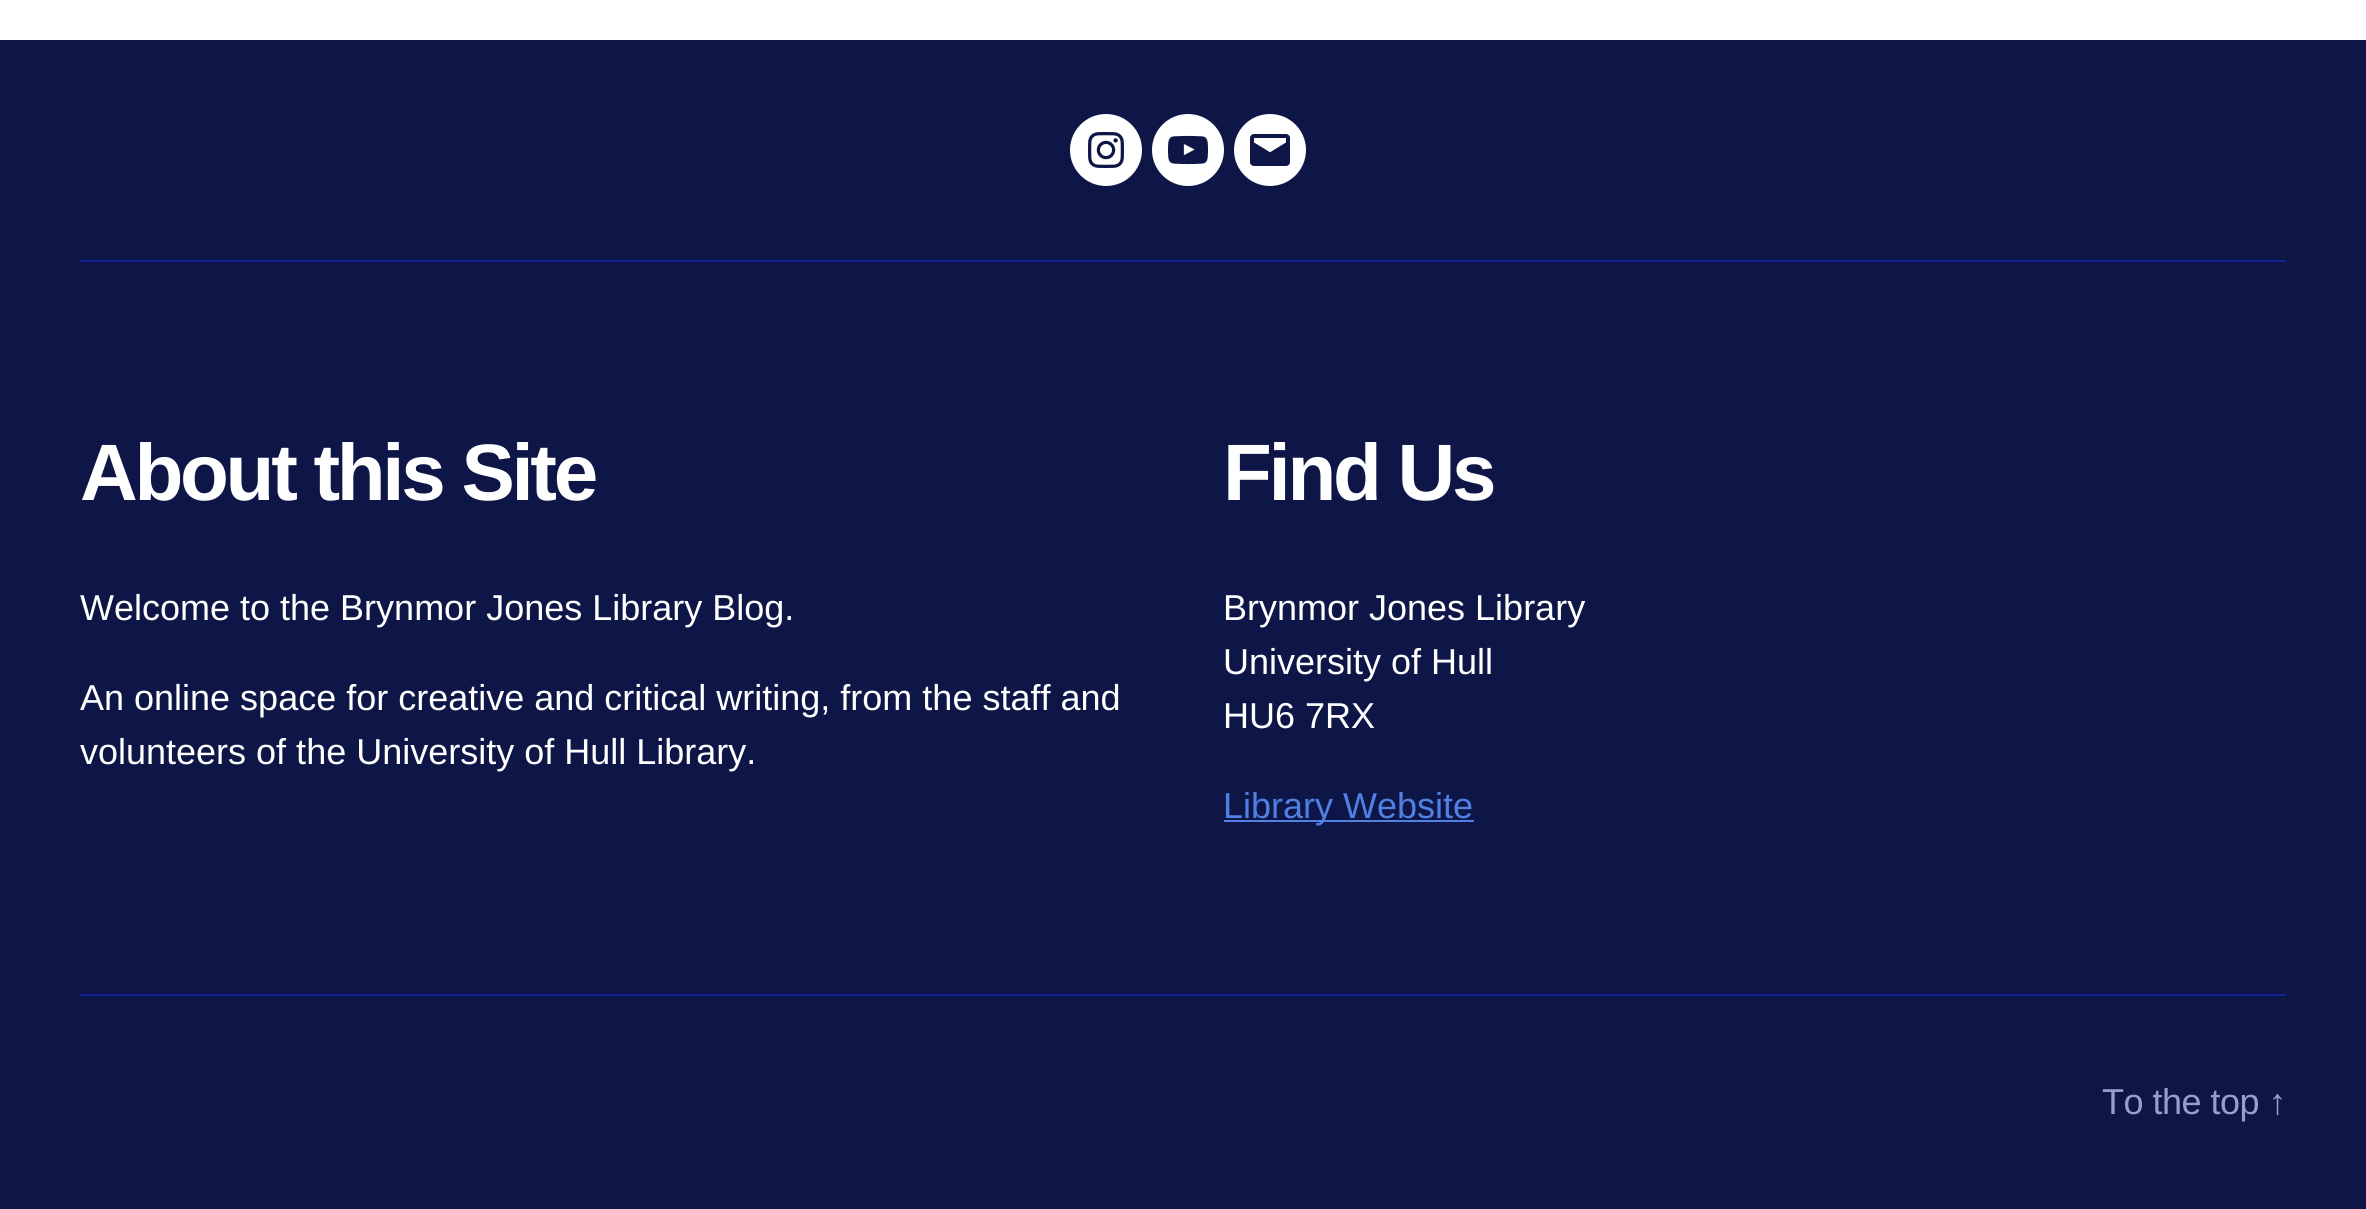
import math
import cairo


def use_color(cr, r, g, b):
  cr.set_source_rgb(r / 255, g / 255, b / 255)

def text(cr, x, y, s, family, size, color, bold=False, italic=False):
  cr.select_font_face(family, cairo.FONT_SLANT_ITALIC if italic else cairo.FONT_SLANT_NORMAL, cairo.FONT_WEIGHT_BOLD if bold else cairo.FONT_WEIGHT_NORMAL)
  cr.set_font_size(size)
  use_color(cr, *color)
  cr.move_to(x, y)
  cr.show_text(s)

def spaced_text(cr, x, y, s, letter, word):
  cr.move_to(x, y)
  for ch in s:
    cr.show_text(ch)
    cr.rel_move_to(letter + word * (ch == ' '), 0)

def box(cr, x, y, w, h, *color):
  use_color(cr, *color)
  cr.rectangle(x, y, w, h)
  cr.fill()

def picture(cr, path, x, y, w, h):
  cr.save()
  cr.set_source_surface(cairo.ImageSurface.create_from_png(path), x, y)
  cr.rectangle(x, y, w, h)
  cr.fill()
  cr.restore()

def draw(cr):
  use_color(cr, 255, 255, 255)
  cr.paint()
  box(cr, 0, 40, 2366, 1169, 14, 22, 71)
  box(cr, 80, 260, 2206, 2, 19, 34, 148)
  use_color(cr, 255, 255, 255)
  cr.arc(1106, 150, 36, 0, 2 * math.pi)
  cr.fill()
  picture(cr, "img_01.png", 1088, 132, 36, 36)
  cr.arc(1188, 150, 36, 0, 2 * math.pi)
  cr.fill()
  picture(cr, "img_02.png", 1168, 135, 40, 30)
  cr.arc(1270, 150, 36, 0, 2 * math.pi)
  cr.fill()
  picture(cr, "img_03.png", 1250, 134, 40, 32)
  box(cr, 80, 994, 2206, 2, 19, 34, 148)
  box(cr, 1224, 820, 250, 2, 80, 128, 225)
  cr.select_font_face("Liberation Sans", cairo.FONT_SLANT_NORMAL, cairo.FONT_WEIGHT_BOLD)
  cr.set_font_size(80)
  use_color(cr, 255, 255, 255)
  spaced_text(cr, 80, 500, "About this Site", -3.3, 0)
  text(cr, 80, 620, "Welcome to the Brynmor Jones Library Blog.", "Liberation Sans", 36, (255, 255, 255))
  text(cr, 80, 710, "An online space for creative and critical writing, from the staff and", "Liberation Sans", 36, (255, 255, 255))
  text(cr, 80, 764, "volunteers of the University of Hull Library.", "Liberation Sans", 36, (255, 255, 255))
  cr.select_font_face("Liberation Sans", cairo.FONT_SLANT_NORMAL, cairo.FONT_WEIGHT_BOLD)
  cr.set_font_size(80)
  spaced_text(cr, 1223, 500, "Find Us", -3.3, 0)
  text(cr, 1223, 620, "Brynmor Jones Library", "Liberation Sans", 36, (255, 255, 255))
  text(cr, 1223, 674, "University of Hull", "Liberation Sans", 36, (255, 255, 255))
  text(cr, 1223, 728, "HU6 7RX", "Liberation Sans", 36, (255, 255, 255))
  text(cr, 1223, 818, "Library Website", "Liberation Sans", 36, (80, 128, 225))
  use_color(cr, 152, 158, 204)
  spaced_text(cr, 2102, 1114, "To the top ↑", -0.5, 0)


surface = cairo.ImageSurface(cairo.FORMAT_RGB24, 2366, 1209)
cr = cairo.Context(surface)
options = cairo.FontOptions()
options.set_hint_metrics(cairo.HINT_METRICS_OFF)
options.set_hint_style(cairo.HINT_STYLE_NONE)
cr.set_font_options(options)
cr.set_miter_limit(4)
draw(cr)
surface.write_to_png("out.png")
